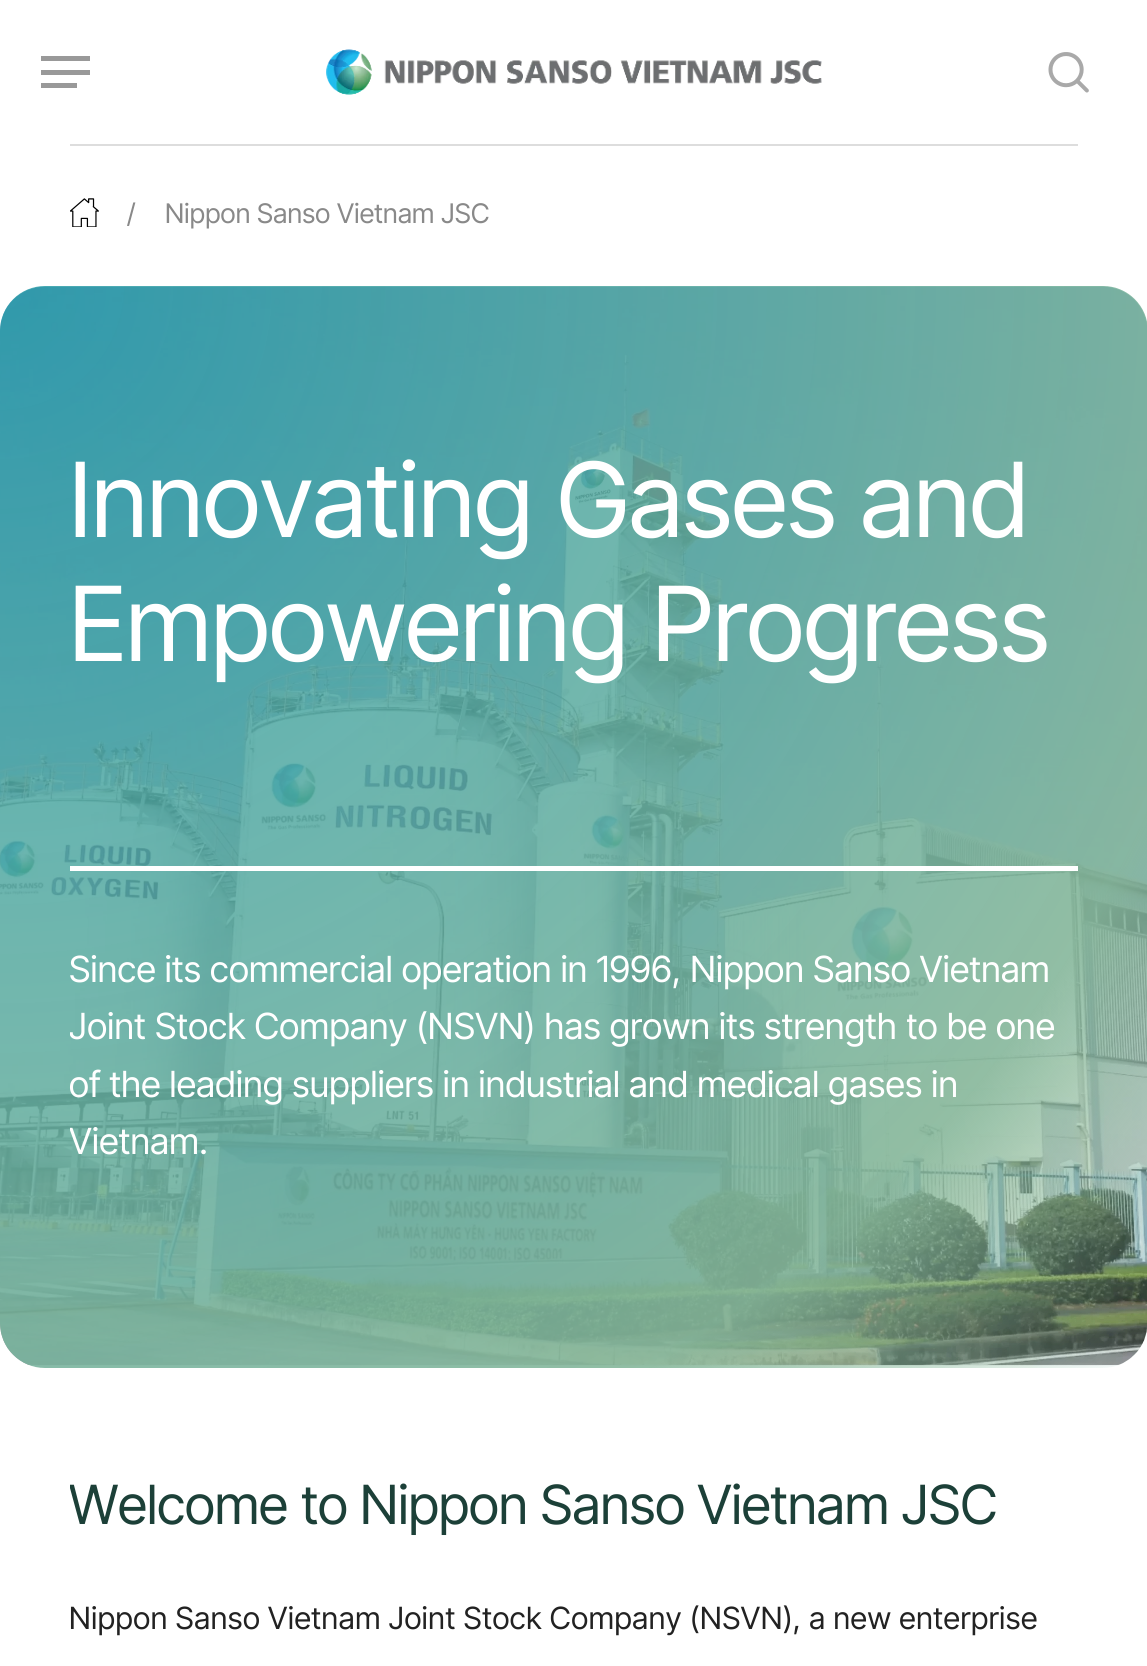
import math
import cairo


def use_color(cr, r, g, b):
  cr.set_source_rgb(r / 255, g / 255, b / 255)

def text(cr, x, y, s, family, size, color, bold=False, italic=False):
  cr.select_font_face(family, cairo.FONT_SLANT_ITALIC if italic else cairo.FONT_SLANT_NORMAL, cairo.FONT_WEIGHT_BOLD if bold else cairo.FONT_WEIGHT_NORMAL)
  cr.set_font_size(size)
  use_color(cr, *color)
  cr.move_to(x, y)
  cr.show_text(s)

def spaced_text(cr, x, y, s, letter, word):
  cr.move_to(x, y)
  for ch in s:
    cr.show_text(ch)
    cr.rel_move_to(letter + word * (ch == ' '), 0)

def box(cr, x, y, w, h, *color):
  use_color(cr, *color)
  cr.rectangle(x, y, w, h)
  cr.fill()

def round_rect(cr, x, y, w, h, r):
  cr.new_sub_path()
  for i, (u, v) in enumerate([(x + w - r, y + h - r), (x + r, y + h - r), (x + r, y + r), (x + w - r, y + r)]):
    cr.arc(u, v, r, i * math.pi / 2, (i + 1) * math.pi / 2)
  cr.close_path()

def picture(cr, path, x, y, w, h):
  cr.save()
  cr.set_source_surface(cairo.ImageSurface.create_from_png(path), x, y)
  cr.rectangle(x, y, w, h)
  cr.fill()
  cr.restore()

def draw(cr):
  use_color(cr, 255, 255, 255)
  cr.paint()
  picture(cr, "img_01.png", 326, 49, 496, 46)
  box(cr, 41, 56, 49, 5, 153, 153, 153)
  box(cr, 41, 83, 36, 5, 153, 153, 153)
  box(cr, 41, 70, 49, 5, 153, 153, 153)
  picture(cr, "img_02.png", 1048, 52, 41, 41)
  box(cr, 70, 144, 1008, 2, 221, 221, 221)
  picture(cr, "img_03.png", 70, 198, 29, 29)
  picture(cr, "img_04.png", 0, 286, 1147, 1082)
  gradient = cairo.RadialGradient(0, 286, 0, 0, 286, 1577)
  gradient.add_color_stop_rgba(0, 0.133, 0.604, 0.647, 0.8)
  gradient.add_color_stop_rgba(0.8, 0.525, 0.718, 0.608, 0.9)
  gradient.add_color_stop_rgba(1, 0.525, 0.718, 0.608, 0)
  cr.set_source(gradient)
  round_rect(cr, 0, 286, 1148, 1082, 45)
  cr.fill()
  box(cr, 70, 866, 1008, 5, 255, 255, 255)
  cr.select_font_face("Inter Tight")
  cr.set_font_size(27)
  use_color(cr, 137, 137, 137)
  spaced_text(cr, 127, 223, "/", 0.25, 0)
  spaced_text(cr, 165, 223, "Nippon Sanso Vietnam JSC", 0.25, 0)
  text(cr, 69, 537, "Innovating Gases and", "Inter Tight", 103.5, (255, 255, 255))
  text(cr, 69, 661, "Empowering Progress", "Inter Tight", 103.5, (255, 255, 255))
  cr.set_font_size(36)
  spaced_text(cr, 69, 982, "Since its commercial operation in 1996, Nippon Sanso Vietnam", 0.35, 0)
  cr.save()
  cr.rectangle(70, 999, 76, 59)
  cr.clip()
  spaced_text(cr, 69, 1039, "Joint", 0.35, 0)
  cr.restore()
  spaced_text(cr, 155, 1039, "Stock Company (NSVN) has grown its strength", 0.35, 0)
  cr.save()
  cr.rectangle(907, 999, 31, 59)
  cr.clip()
  spaced_text(cr, 906, 1039, "to", 0.35, 0)
  cr.restore()
  spaced_text(cr, 947, 1039, "be one", 0.35, 0)
  spaced_text(cr, 69, 1097, "of the leading suppliers in industrial and medical gases in", 0.35, 0)
  cr.save()
  cr.rectangle(70, 1114, 139, 58)
  cr.clip()
  spaced_text(cr, 69, 1154, "Vietnam.", 0.35, 0)
  cr.restore()
  cr.save()
  cr.rectangle(70, 1474, 218, 65)
  cr.clip()
  text(cr, 69, 1524, "Welcome", "Inter Tight", 54, (28, 64, 56))
  cr.restore()
  cr.save()
  cr.rectangle(302, 1474, 45, 65)
  cr.clip()
  text(cr, 301, 1524, "to", "Inter Tight", 54, (28, 64, 56))
  cr.restore()
  text(cr, 360, 1524, "Nippon Sanso Vietnam JSC", "Inter Tight", 54, (28, 64, 56))
  cr.set_font_size(30.6)
  use_color(cr, 34, 34, 34)
  spaced_text(cr, 69, 1629, "Nippon Sanso Vietnam Joint Stock Company (NSVN), a new enterprise", 0.6, 0)


surface = cairo.ImageSurface(cairo.FORMAT_RGB24, 1147, 1666)
cr = cairo.Context(surface)
options = cairo.FontOptions()
options.set_hint_metrics(cairo.HINT_METRICS_OFF)
options.set_hint_style(cairo.HINT_STYLE_NONE)
cr.set_font_options(options)
cr.set_miter_limit(4)
draw(cr)
surface.write_to_png("out.png")
